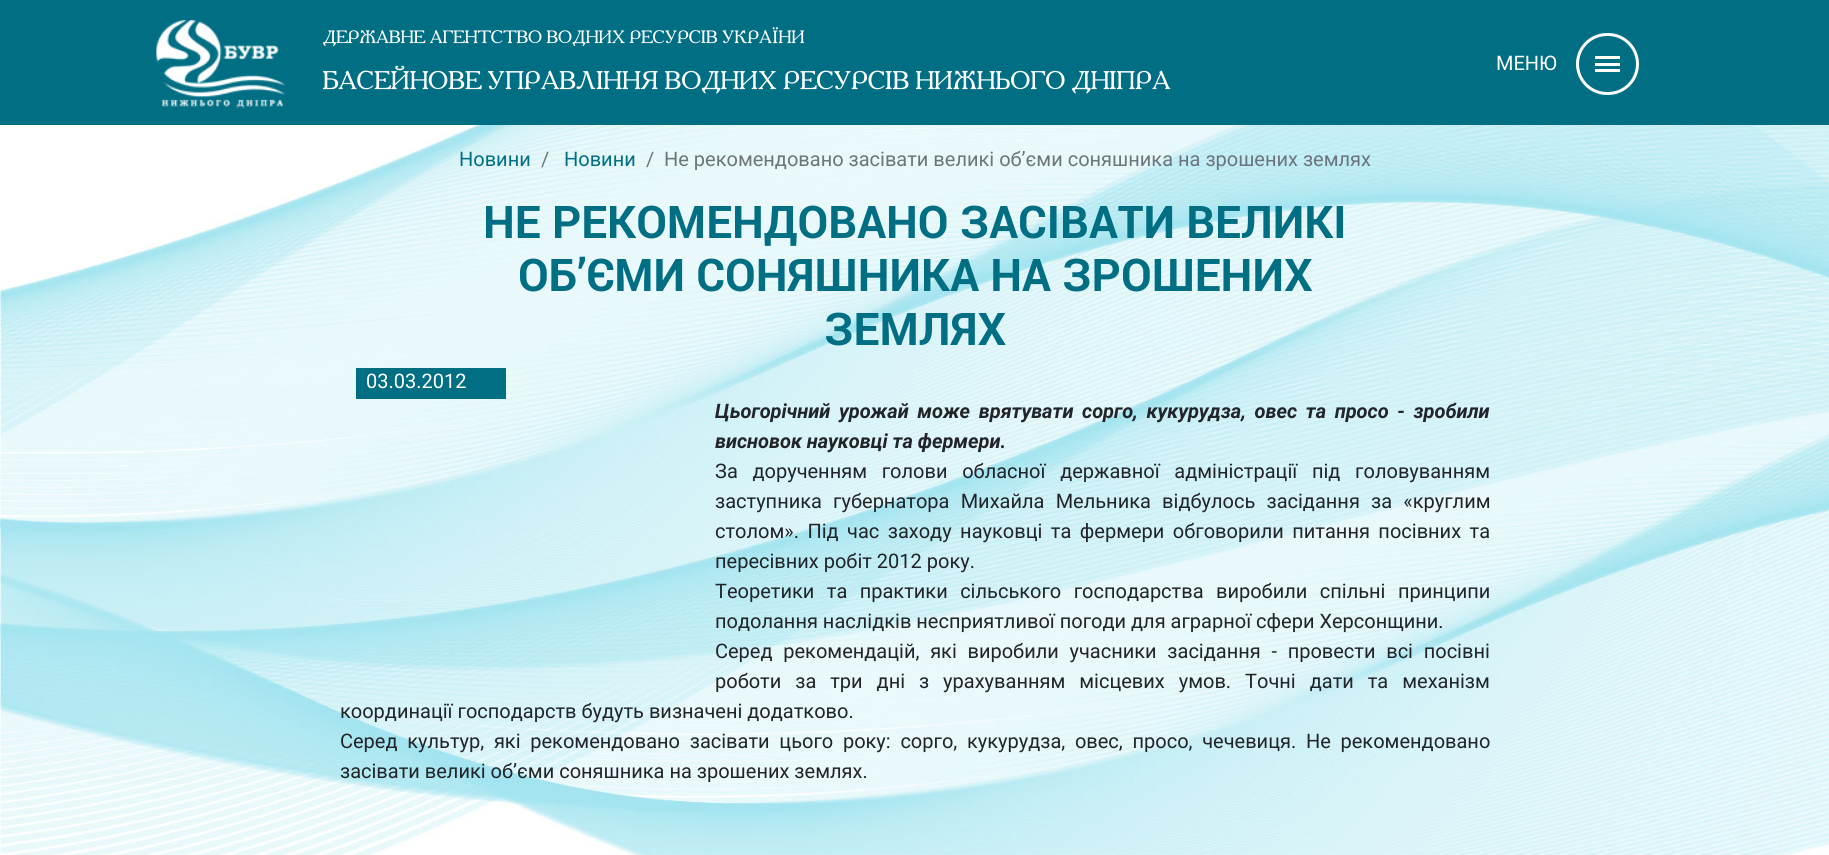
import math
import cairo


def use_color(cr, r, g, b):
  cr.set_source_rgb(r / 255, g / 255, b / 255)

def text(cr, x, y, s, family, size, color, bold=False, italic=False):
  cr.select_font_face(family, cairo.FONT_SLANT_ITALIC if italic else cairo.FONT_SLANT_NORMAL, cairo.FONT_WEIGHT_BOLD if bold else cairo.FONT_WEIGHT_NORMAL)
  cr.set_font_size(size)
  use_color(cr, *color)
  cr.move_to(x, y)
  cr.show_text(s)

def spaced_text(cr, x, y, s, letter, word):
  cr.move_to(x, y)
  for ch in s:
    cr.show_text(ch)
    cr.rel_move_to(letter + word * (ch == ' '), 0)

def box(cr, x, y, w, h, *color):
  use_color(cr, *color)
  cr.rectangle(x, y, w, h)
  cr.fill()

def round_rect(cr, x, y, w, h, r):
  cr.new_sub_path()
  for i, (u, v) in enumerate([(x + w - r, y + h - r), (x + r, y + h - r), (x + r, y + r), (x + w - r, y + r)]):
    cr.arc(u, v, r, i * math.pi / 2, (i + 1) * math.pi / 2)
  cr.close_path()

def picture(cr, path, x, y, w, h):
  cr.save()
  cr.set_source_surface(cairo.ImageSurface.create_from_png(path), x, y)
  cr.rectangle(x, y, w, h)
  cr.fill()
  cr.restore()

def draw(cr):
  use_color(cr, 255, 255, 255)
  cr.paint()
  box(cr, 0, 0, 1829, 125, 0, 111, 132)
  picture(cr, "img_01.png", 156, 20, 129, 88)
  round_rect(cr, 1577.5, 34.5, 60, 59, 29.5)
  use_color(cr, 255, 255, 255)
  cr.set_line_width(3)
  cr.stroke()
  box(cr, 1595, 63, 25, 3, 255, 255, 255)
  box(cr, 1595, 56, 25, 3, 255, 255, 255)
  box(cr, 1595, 69, 25, 3, 255, 255, 255)
  picture(cr, "img_02.png", 0, 125, 1829, 730)
  box(cr, 356, 368, 150, 31, 0, 111, 132)
  text(cr, 323, 43, "ДЕРЖАВНЕ АГЕНТСТВО ВОДНИХ РЕСУРСІВ УКРАЇНИ", "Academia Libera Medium", 17.5, (255, 255, 255))
  text(cr, 323, 89, "БАСЕЙНОВЕ УПРАВЛІННЯ ВОДНИХ РЕСУРСІВ НИЖНЬОГО ДНІПРА", "Academia Libera Medium", 25, (255, 255, 255))
  text(cr, 1496, 70, "МЕНЮ", "Roboto", 20, (255, 255, 255))
  text(cr, 459, 166, "Новини", "Roboto", 20, (0, 111, 132))
  text(cr, 541, 166, "/", "Roboto", 20, (108, 117, 125))
  text(cr, 564, 166, "Новини", "Roboto", 20, (0, 111, 132))
  text(cr, 646, 166, "/", "Roboto", 20, (108, 117, 125))
  text(cr, 664, 166, "Не рекомендовано засівати великі об’єми соняшника на зрошених землях", "Roboto", 20, (108, 117, 125))
  text(cr, 483, 238, "НЕ РЕКОМЕНДОВАНО ЗАСІВАТИ ВЕЛИКІ", "Roboto", 45, (0, 111, 132), bold=True)
  text(cr, 518, 291, "ОБ’ЄМИ СОНЯШНИКА НА ЗРОШЕНИХ", "Roboto", 45, (0, 111, 132), bold=True)
  text(cr, 824, 345, "ЗЕМЛЯХ", "Roboto", 45, (0, 111, 132), bold=True)
  text(cr, 366, 388, "03.03.2012", "Roboto", 20, (255, 255, 255))
  cr.select_font_face("Roboto", cairo.FONT_SLANT_ITALIC, cairo.FONT_WEIGHT_BOLD)
  use_color(cr, 33, 37, 41)
  spaced_text(cr, 715, 418, "Цьогорічний урожай може врятувати сорго, кукурудза, овес та просо - зробили", 0, 3.75)
  text(cr, 715, 448, "висновок науковці та фермери.", "Roboto", 20, (33, 37, 41), bold=True, italic=True)
  cr.select_font_face("Roboto")
  spaced_text(cr, 715, 478, "За дорученням голови обласної державної адміністрації під головуванням", 0, 9.75)
  spaced_text(cr, 715, 508, "заступника губернатора Михайла Мельника відбулось засідання за «круглим", 0, 6.25)
  spaced_text(cr, 715, 538, "столом». Під час заходу науковці та фермери обговорили питання посівних та", 0, 3.5)
  text(cr, 715, 568, "пересівних робіт 2012 року.", "Roboto", 20, (33, 37, 41))
  spaced_text(cr, 715, 598, "Теоретики та практики сільського господарства виробили спільні принципи", 0, 7.5)
  text(cr, 715, 628, "подолання наслідків несприятливої погоди для аграрної сфери Херсонщини.", "Roboto", 20, (33, 37, 41))
  spaced_text(cr, 715, 658, "Серед рекомендацій, які виробили учасники засідання - провести всі посівні", 0, 5.75)
  spaced_text(cr, 715, 688, "роботи за три дні з урахуванням місцевих умов. Точні дати та механізм", 0, 9)
  text(cr, 340, 718, "координації господарств будуть визначені додатково.", "Roboto", 20, (33, 37, 41))
  spaced_text(cr, 340, 748, "Серед культур, які рекомендовано засівати цього року: сорго, кукурудза, овес, просо, чечевиця. Не рекомендовано", 0, 4.75)
  text(cr, 340, 778, "засівати великі об’єми соняшника на зрошених землях.", "Roboto", 20, (33, 37, 41))


surface = cairo.ImageSurface(cairo.FORMAT_RGB24, 1829, 855)
cr = cairo.Context(surface)
options = cairo.FontOptions()
options.set_hint_metrics(cairo.HINT_METRICS_OFF)
options.set_hint_style(cairo.HINT_STYLE_NONE)
cr.set_font_options(options)
cr.set_miter_limit(4)
draw(cr)
surface.write_to_png("out.png")
